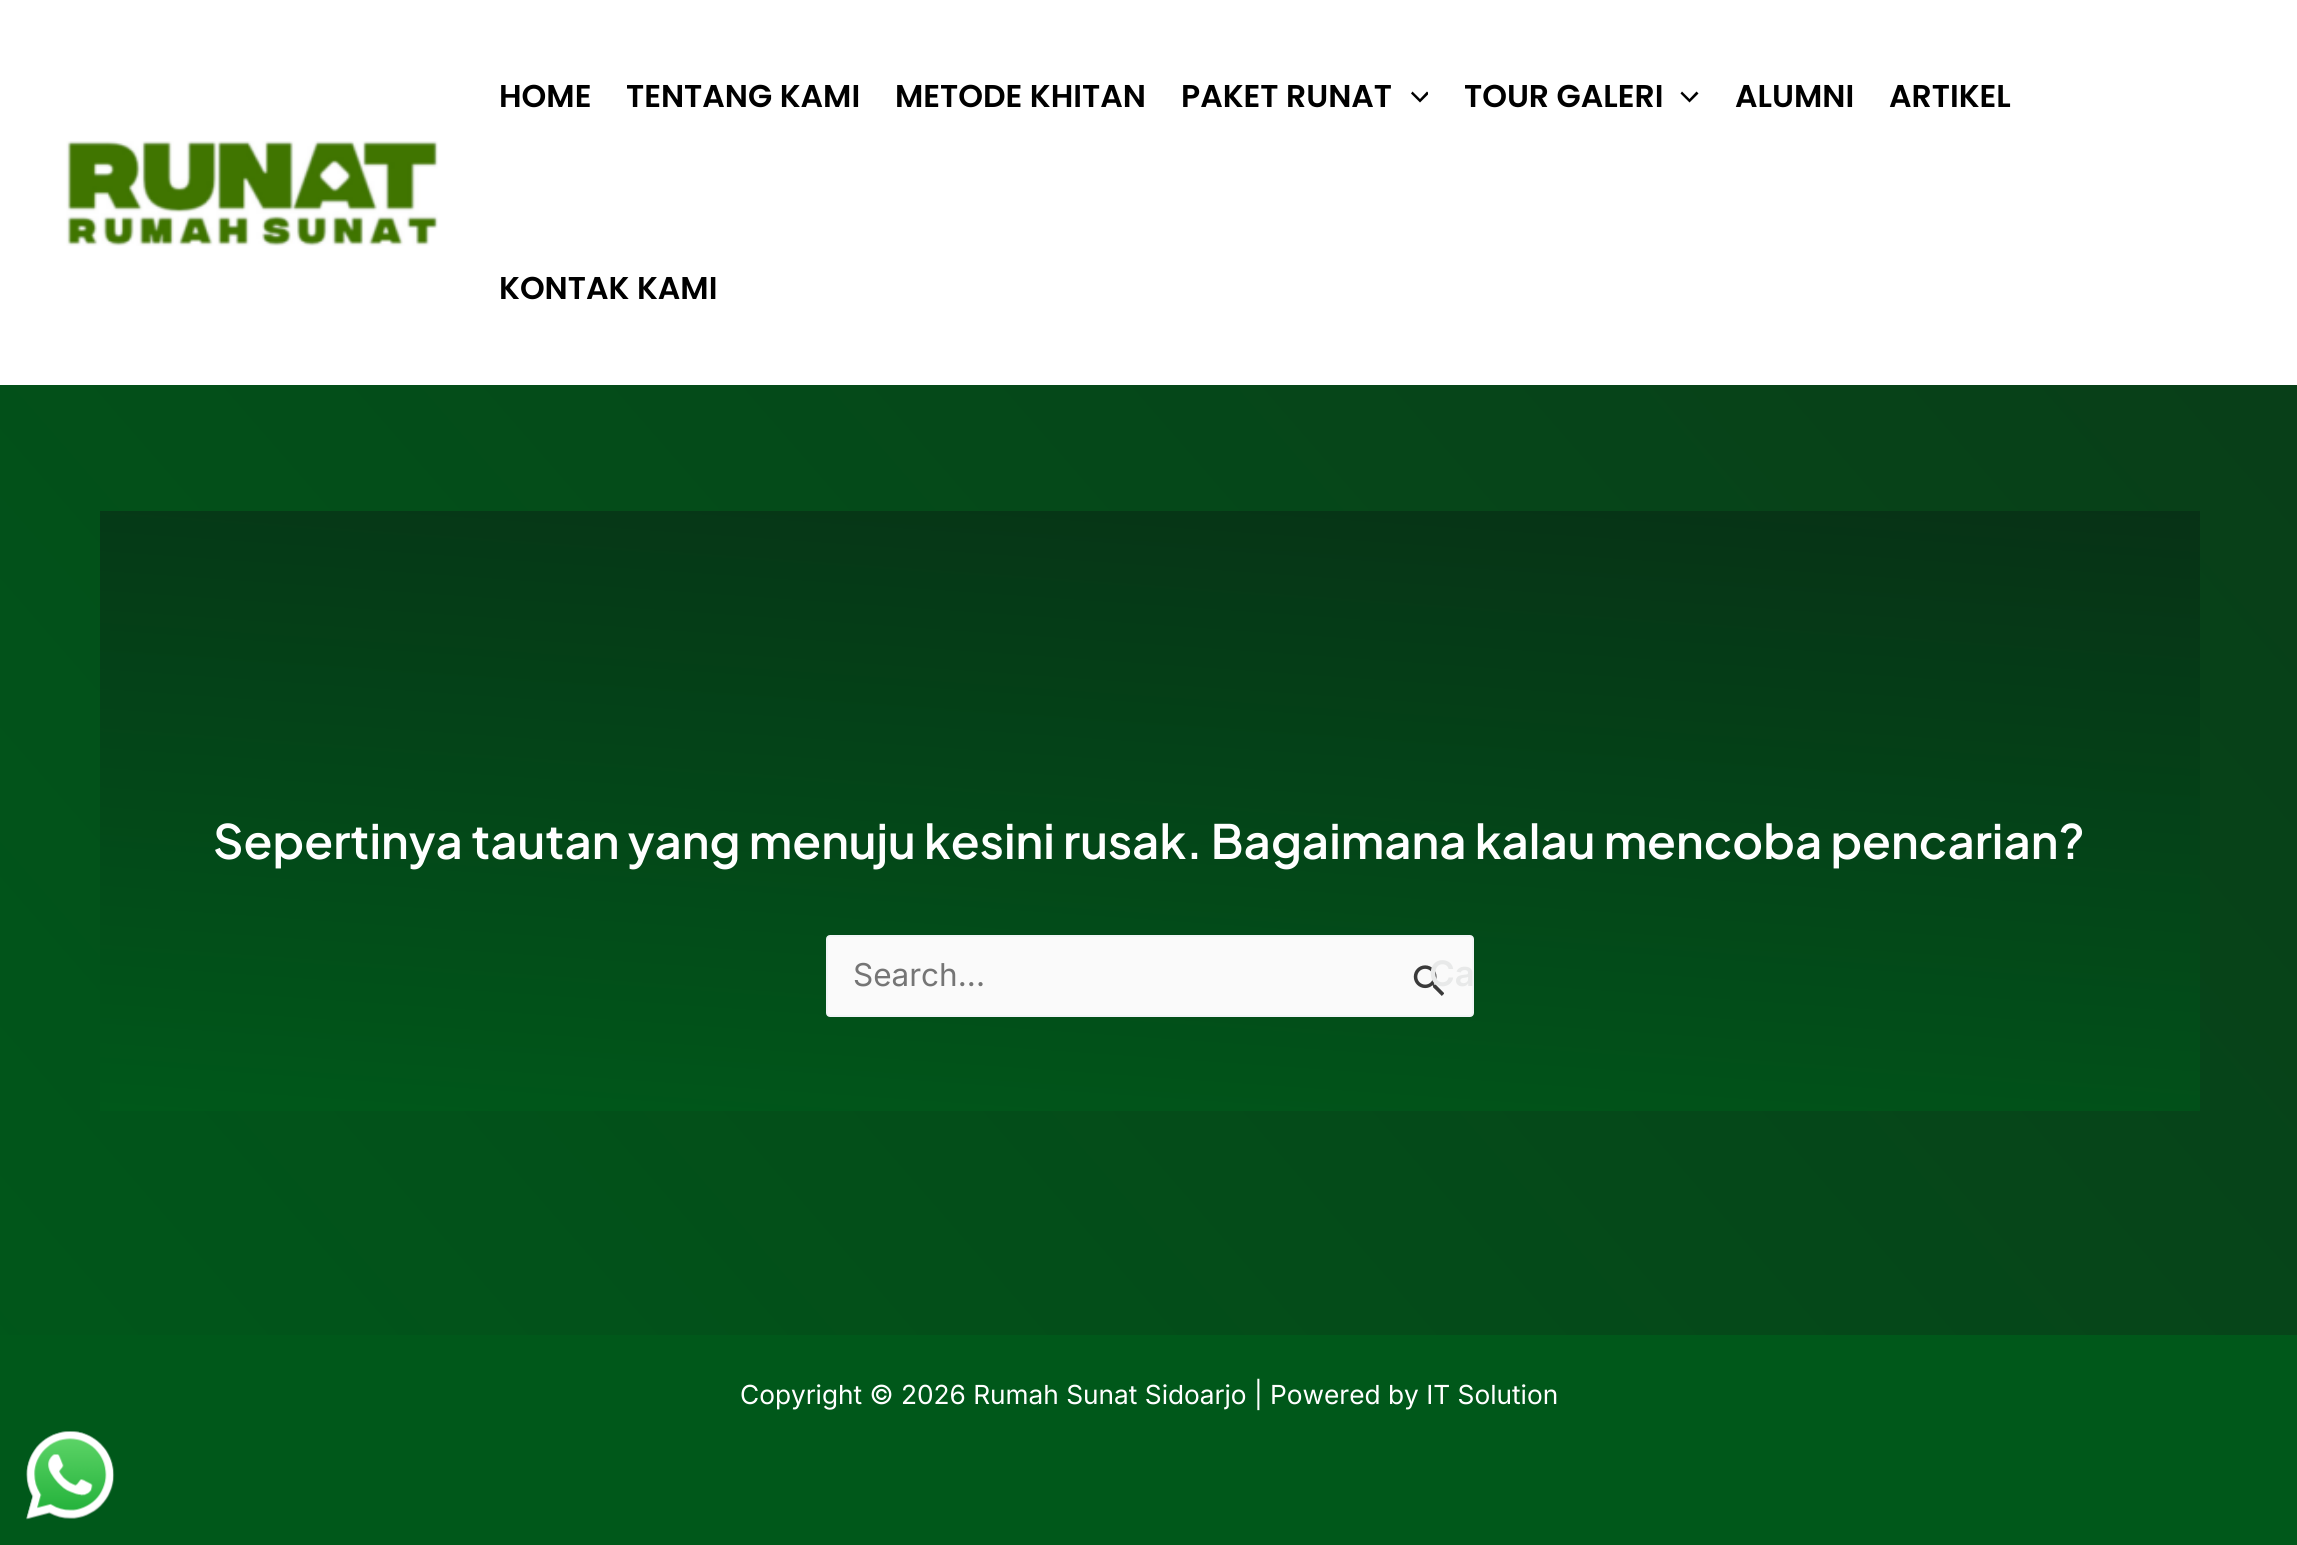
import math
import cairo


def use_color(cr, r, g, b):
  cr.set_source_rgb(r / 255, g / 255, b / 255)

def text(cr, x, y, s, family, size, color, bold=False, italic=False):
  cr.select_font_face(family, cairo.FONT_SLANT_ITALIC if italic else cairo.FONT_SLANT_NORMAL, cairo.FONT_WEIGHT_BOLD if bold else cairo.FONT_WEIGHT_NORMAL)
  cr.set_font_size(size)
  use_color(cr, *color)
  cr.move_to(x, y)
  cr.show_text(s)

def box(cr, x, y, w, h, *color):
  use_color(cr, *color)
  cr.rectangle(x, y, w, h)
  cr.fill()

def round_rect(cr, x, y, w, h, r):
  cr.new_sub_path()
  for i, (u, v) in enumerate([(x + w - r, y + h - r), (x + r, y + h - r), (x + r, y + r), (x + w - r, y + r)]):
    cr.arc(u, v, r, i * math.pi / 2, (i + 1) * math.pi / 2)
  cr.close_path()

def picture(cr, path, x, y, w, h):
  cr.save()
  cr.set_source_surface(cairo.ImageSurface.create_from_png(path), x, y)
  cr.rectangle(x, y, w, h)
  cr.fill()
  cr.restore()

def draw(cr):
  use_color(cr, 255, 255, 255)
  cr.paint()
  gradient = cairo.LinearGradient(2186, -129, 112, 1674)
  gradient.add_color_stop_rgba(0, 0.035, 0.235, 0.094, 1)
  gradient.add_color_stop_rgba(1, 0, 0.345, 0.102, 1)
  cr.set_source(gradient)
  cr.rectangle(0, 385, 2297, 950)
  cr.fill()
  picture(cr, "img_01.png", 66, 141, 372, 105)
  cr.save()
  cr.rectangle(1411, 88, 17, 19)
  cr.clip()
  use_color(cr, 0, 0, 0)
  cr.new_path()
  cr.move_to(1411, 93.5)
  cr.line_to(1420, 102.5)
  cr.line_to(1429, 93.5)
  cr.line_to(1427, 91.5)
  cr.line_to(1420, 99)
  cr.line_to(1412.5, 91.5)
  cr.close_path()
  cr.fill()
  cr.restore()
  use_color(cr, 0, 0, 0)
  cr.new_path()
  cr.move_to(1680.5, 93.5)
  cr.line_to(1689.5, 102.5)
  cr.line_to(1698.5, 93.5)
  cr.line_to(1696.5, 91.5)
  cr.line_to(1689.5, 99)
  cr.line_to(1682, 91.5)
  cr.close_path()
  cr.fill()
  gradient = cairo.LinearGradient(1176, 439, 1124, 1183)
  gradient.add_color_stop_rgba(0, 0.027, 0.196, 0.086, 1)
  gradient.add_color_stop_rgba(1, 0, 0.345, 0.102, 1)
  cr.set_source(gradient)
  cr.rectangle(100, 511, 2100, 600)
  cr.fill()
  use_color(cr, 250, 250, 250)
  round_rect(cr, 827, 936, 646, 80, 3)
  cr.fill_preserve()
  use_color(cr, 242, 245, 247)
  cr.stroke()
  picture(cr, "img_02.png", 1413, 965, 31, 31)
  box(cr, 0, 1335, 2297, 210, 0, 88, 26)
  picture(cr, "img_03.png", 26, 1431, 89, 89)
  text(cr, 499, 107, "HOME", "Poppins SemiBold", 31.5, (0, 0, 0))
  text(cr, 626, 107, "TENTANG KAMI", "Poppins SemiBold", 31.5, (0, 0, 0))
  text(cr, 895, 107, "METODE KHITAN", "Poppins SemiBold", 31.5, (0, 0, 0))
  text(cr, 1181, 107, "PAKET RUNAT", "Poppins SemiBold", 31.5, (0, 0, 0))
  text(cr, 1464, 107, "TOUR GALERI", "Poppins SemiBold", 31.5, (0, 0, 0))
  text(cr, 1735, 107, "ALUMNI", "Poppins SemiBold", 31.5, (0, 0, 0))
  text(cr, 1889, 107, "ARTIKEL", "Poppins SemiBold", 31.5, (0, 0, 0))
  text(cr, 499, 299, "KONTAK KAMI", "Poppins SemiBold", 31.5, (0, 0, 0))
  text(cr, 213, 859, "Sepertinya tautan yang menuju kesini rusak. Bagaimana kalau mencoba pencarian?", "Plus Jakarta Sans SemiBold", 47.25, (255, 255, 255))
  text(cr, 853, 986, "Search...", "Inter", 31.5, (117, 117, 117))
  text(cr, 1429, 986, "Ca", "Inter SemiBold", 35, (232, 233, 233))
  text(cr, 740, 1404, "Copyright © 2026 Rumah Sunat Sidoarjo | Powered by IT Solution", "Inter", 26.25, (255, 255, 255))


surface = cairo.ImageSurface(cairo.FORMAT_RGB24, 2297, 1545)
cr = cairo.Context(surface)
options = cairo.FontOptions()
options.set_hint_metrics(cairo.HINT_METRICS_OFF)
options.set_hint_style(cairo.HINT_STYLE_NONE)
cr.set_font_options(options)
cr.set_miter_limit(4)
draw(cr)
surface.write_to_png("out.png")
